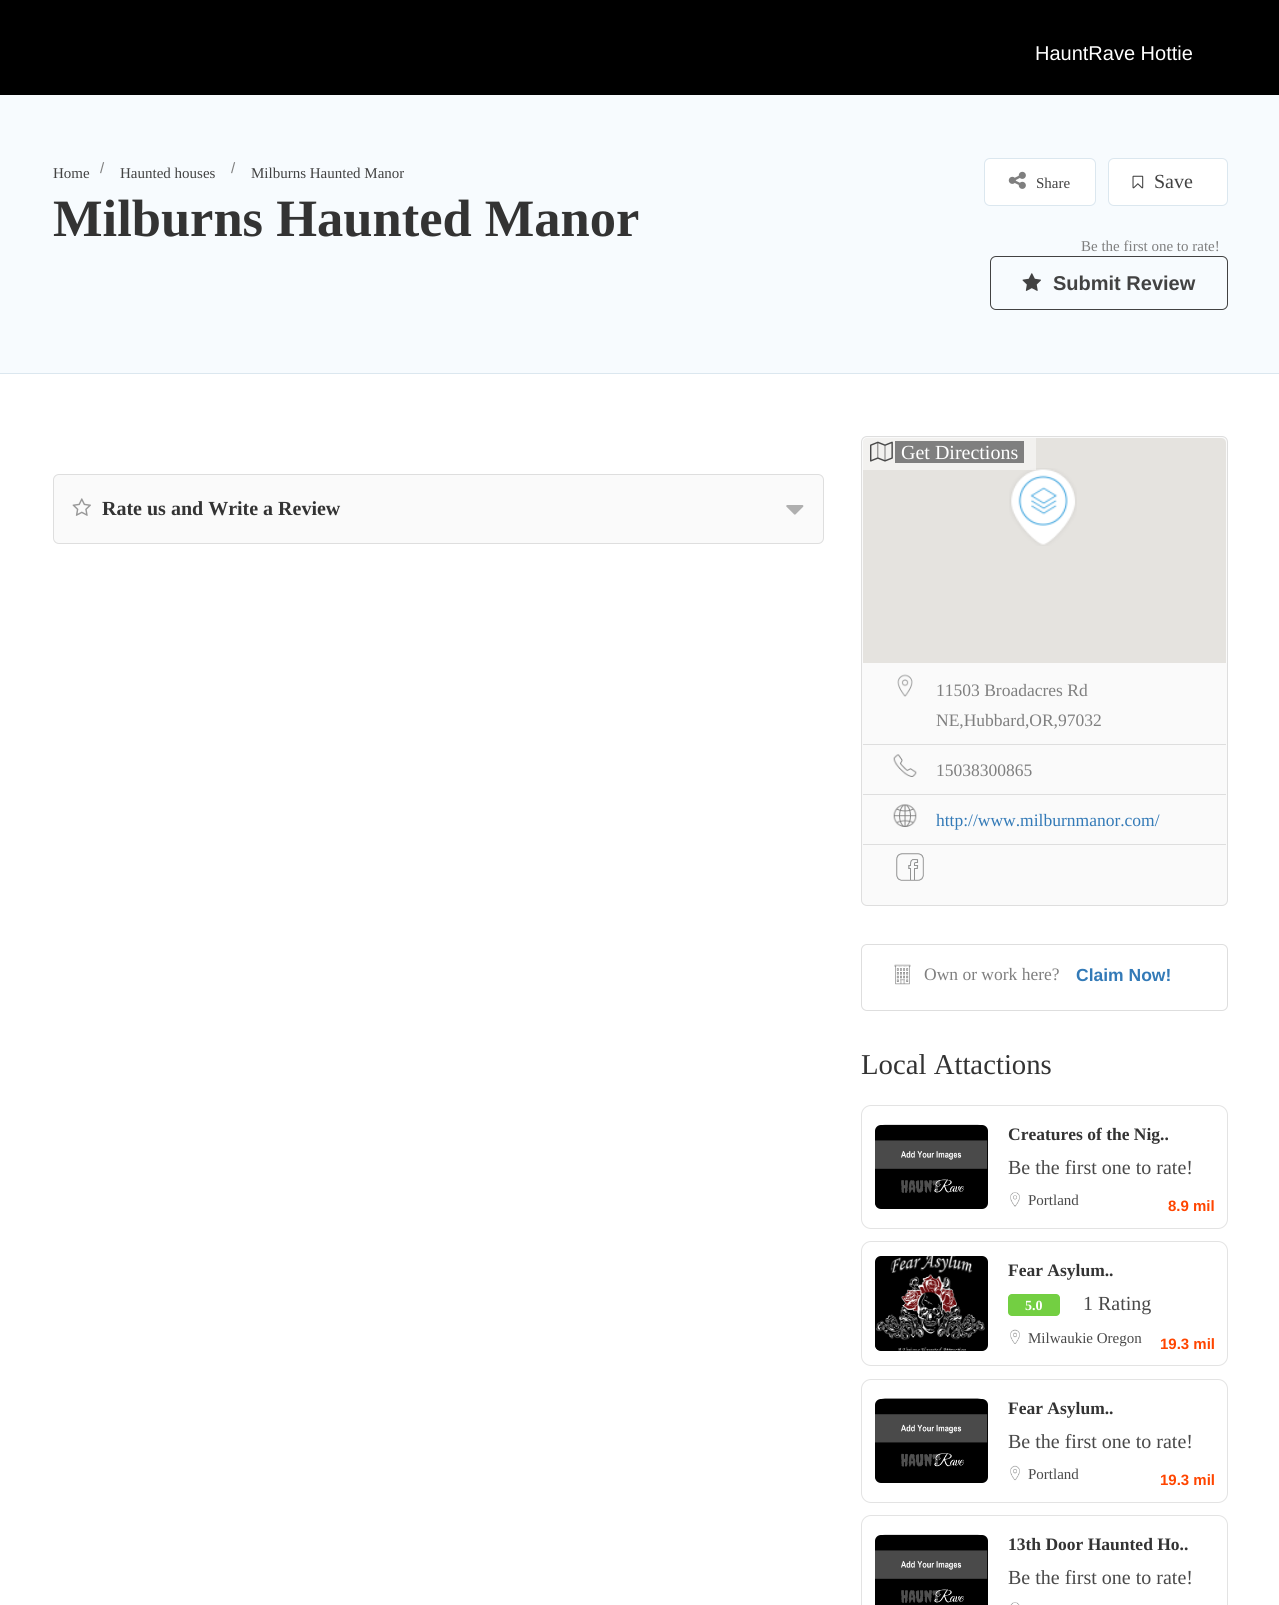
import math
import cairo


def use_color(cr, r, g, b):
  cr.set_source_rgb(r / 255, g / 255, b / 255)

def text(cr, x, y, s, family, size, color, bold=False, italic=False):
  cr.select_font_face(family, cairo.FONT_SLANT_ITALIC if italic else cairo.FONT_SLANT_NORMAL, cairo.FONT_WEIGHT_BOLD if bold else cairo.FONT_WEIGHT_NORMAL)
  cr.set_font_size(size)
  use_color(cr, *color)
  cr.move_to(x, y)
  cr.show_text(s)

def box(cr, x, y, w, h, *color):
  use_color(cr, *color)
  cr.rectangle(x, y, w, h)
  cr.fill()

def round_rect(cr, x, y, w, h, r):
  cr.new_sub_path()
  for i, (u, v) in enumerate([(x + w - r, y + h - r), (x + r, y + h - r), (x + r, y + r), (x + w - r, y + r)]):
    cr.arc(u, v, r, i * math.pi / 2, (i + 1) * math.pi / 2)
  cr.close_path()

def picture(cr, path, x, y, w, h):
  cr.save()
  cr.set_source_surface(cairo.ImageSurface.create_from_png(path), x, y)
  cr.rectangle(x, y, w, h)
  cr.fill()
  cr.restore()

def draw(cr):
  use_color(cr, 247, 251, 254)
  cr.paint()
  box(cr, 0, 0, 1279, 95, 0, 0, 0)
  box(cr, 0, 373, 1279, 1, 219, 231, 239)
  use_color(cr, 255, 255, 255)
  round_rect(cr, 984.5, 158.5, 111, 47, 5.5)
  cr.fill_preserve()
  use_color(cr, 219, 231, 239)
  cr.set_line_width(1)
  cr.stroke()
  picture(cr, "img_01.png", 1008, 171, 18, 18)
  use_color(cr, 255, 255, 255)
  round_rect(cr, 1108.5, 158.5, 119, 47, 5.5)
  cr.fill_preserve()
  use_color(cr, 219, 231, 239)
  cr.stroke()
  picture(cr, "img_02.png", 1132, 175, 12, 14)
  round_rect(cr, 990.5, 256.5, 237, 53, 5.5)
  use_color(cr, 66, 66, 66)
  cr.stroke()
  picture(cr, "img_03.png", 1022, 273, 19, 18)
  box(cr, 0, 374, 1279, 1231, 255, 255, 255)
  use_color(cr, 250, 250, 250)
  round_rect(cr, 53.5, 474.5, 770, 69, 5.5)
  cr.fill_preserve()
  use_color(cr, 222, 222, 222)
  cr.stroke()
  picture(cr, "img_04.png", 72, 498, 19, 18)
  picture(cr, "img_05.png", 786, 505, 18, 10)
  use_color(cr, 250, 250, 250)
  round_rect(cr, 861.5, 436.5, 366, 469, 5.5)
  cr.fill_preserve()
  use_color(cr, 222, 222, 222)
  cr.stroke()
  use_color(cr, 229, 227, 223)
  cr.new_path()
  cr.move_to(868, 438)
  cr.line_to(1221, 438)
  cr.curve_to(1224, 438, 1226, 440, 1226, 443)
  cr.line_to(1226, 663)
  cr.line_to(863, 663)
  cr.line_to(863, 443)
  cr.curve_to(863, 440, 865, 438, 868, 438)
  cr.close_path()
  cr.fill()
  picture(cr, "img_06.png", 1009, 468, 68, 78)
  cr.set_source_rgba(1, 1, 1, 0.5)
  cr.new_path()
  cr.move_to(868, 438)
  cr.line_to(1036, 438)
  cr.line_to(1036, 470)
  cr.line_to(863, 470)
  cr.line_to(863, 443)
  cr.curve_to(863, 440, 865, 438, 868, 438)
  cr.close_path()
  cr.fill()
  picture(cr, "img_07.png", 870, 441, 23, 21)
  box(cr, 895, 441, 129, 22, 127, 127, 127)
  box(cr, 863, 744, 363, 1, 222, 222, 222)
  picture(cr, "img_08.png", 897, 674, 16, 23)
  box(cr, 863, 794, 363, 1, 222, 222, 222)
  picture(cr, "img_09.png", 893, 754, 24, 23)
  picture(cr, "img_10.png", 893, 804, 24, 23)
  box(cr, 863, 844, 363, 1, 222, 222, 222)
  picture(cr, "img_11.png", 896, 853, 28, 28)
  round_rect(cr, 861.5, 944.5, 366, 66, 5.5)
  cr.stroke()
  picture(cr, "img_12.png", 894, 964, 17, 21)
  round_rect(cr, 861.5, 1105.5, 366, 123, 9.5)
  use_color(cr, 227, 227, 227)
  cr.stroke()
  use_color(cr, 0, 0, 0)
  round_rect(cr, 875, 1125, 113, 84, 6)
  cr.fill()
  picture(cr, "img_13.png", 875, 1124, 113, 83)
  picture(cr, "img_14.png", 1010, 1192, 10, 15)
  round_rect(cr, 861.5, 1241.5, 366, 124, 9.5)
  use_color(cr, 227, 227, 227)
  cr.stroke()
  use_color(cr, 0, 0, 0)
  round_rect(cr, 875, 1256, 113, 95, 6)
  cr.fill()
  picture(cr, "img_15.png", 875, 1256, 111, 95)
  use_color(cr, 115, 207, 66)
  round_rect(cr, 1008, 1294, 52, 22, 4)
  cr.fill()
  picture(cr, "img_16.png", 1010, 1329, 10, 15)
  round_rect(cr, 861.5, 1379.5, 366, 123, 9.5)
  use_color(cr, 227, 227, 227)
  cr.stroke()
  use_color(cr, 0, 0, 0)
  round_rect(cr, 875, 1399, 113, 84, 6)
  cr.fill()
  picture(cr, "img_17.png", 875, 1398, 113, 81)
  picture(cr, "img_18.png", 1010, 1465, 10, 16)
  round_rect(cr, 861.5, 1515.5, 366, 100, 9.5)
  use_color(cr, 227, 227, 227)
  cr.stroke()
  use_color(cr, 0, 0, 0)
  round_rect(cr, 875, 1535, 113, 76, 6)
  cr.fill()
  picture(cr, "img_19.png", 875, 1534, 113, 69)
  picture(cr, "img_20.png", 1010, 1602, 10, 3)
  text(cr, 1035, 60, "HauntRave Hottie", "Liberation Sans", 20, (255, 255, 255))
  text(cr, 53, 178, "Home", "Liberation Serif", 15, (66, 66, 66))
  text(cr, 100, 173, "/", "Liberation Sans", 15, (127, 127, 127))
  text(cr, 120, 178, "Haunted houses", "Liberation Serif", 15, (66, 66, 66))
  text(cr, 231, 173, "/", "Liberation Sans", 15, (127, 127, 127))
  text(cr, 251, 178, "Milburns Haunted Manor", "Liberation Serif", 15, (66, 66, 66))
  text(cr, 53, 236, "Milburns Haunted Manor", "Liberation Serif", 52.5, (51, 51, 51), bold=True)
  text(cr, 1036, 188, "Share", "Liberation Serif", 15, (66, 66, 66))
  text(cr, 1154, 188, "Save", "Liberation Serif", 20, (66, 66, 66))
  text(cr, 1081, 251, "Be the first one to rate!", "Liberation Serif", 15, (127, 127, 127))
  text(cr, 1053, 290, "Submit Review", "Liberation Sans", 20, (66, 66, 66), bold=True)
  text(cr, 102, 515, "Rate us and Write a Review", "Liberation Serif", 20, (51, 51, 51), bold=True)
  text(cr, 901, 459, "Get Directions", "Liberation Serif", 20, (255, 255, 255))
  text(cr, 936, 696, "11503 Broadacres Rd", "Liberation Serif", 17.5, (127, 127, 127))
  text(cr, 936, 726, "NE,Hubbard,OR,97032", "Liberation Serif", 17.5, (127, 127, 127))
  text(cr, 936, 776, "15038300865", "Liberation Serif", 17.5, (127, 127, 127))
  text(cr, 936, 826, "http://www.milburnmanor.com/", "Liberation Serif", 17.5, (51, 122, 183))
  text(cr, 924, 980, "Own or work here?", "Liberation Serif", 17.5, (127, 127, 127))
  text(cr, 1076, 981, "Claim Now!", "Liberation Sans", 17.5, (51, 122, 183), bold=True)
  text(cr, 861, 1074, "Local Attactions", "Liberation Serif", 28.75, (51, 51, 51))
  text(cr, 1008, 1140, "Creatures of the Nig..", "Liberation Serif", 17.5, (51, 51, 51), bold=True)
  text(cr, 1008, 1174, "Be the first one to rate!", "Liberation Serif", 20, (73, 73, 73))
  text(cr, 1028, 1205, "Portland", "Liberation Serif", 15, (73, 73, 73))
  text(cr, 1168, 1211, "8.9 mil", "Liberation Sans", 15, (255, 69, 0), bold=True)
  text(cr, 1008, 1276, "Fear Asylum..", "Liberation Serif", 17.5, (51, 51, 51), bold=True)
  text(cr, 1025, 1310, "5.0", "Liberation Serif", 14, (255, 255, 255), bold=True)
  text(cr, 1083, 1310, "1 Rating", "Liberation Serif", 20, (73, 73, 73))
  text(cr, 1028, 1343, "Milwaukie Oregon", "Liberation Serif", 15, (73, 73, 73))
  text(cr, 1160, 1349, "19.3 mil", "Liberation Sans", 15, (255, 69, 0), bold=True)
  text(cr, 1008, 1414, "Fear Asylum..", "Liberation Serif", 17.5, (51, 51, 51), bold=True)
  text(cr, 1008, 1448, "Be the first one to rate!", "Liberation Serif", 20, (73, 73, 73))
  text(cr, 1028, 1479, "Portland", "Liberation Serif", 15, (73, 73, 73))
  text(cr, 1160, 1485, "19.3 mil", "Liberation Sans", 15, (255, 69, 0), bold=True)
  text(cr, 1008, 1550, "13th Door Haunted Ho..", "Liberation Serif", 17.5, (51, 51, 51), bold=True)
  text(cr, 1008, 1584, "Be the first one to rate!", "Liberation Serif", 20, (73, 73, 73))


surface = cairo.ImageSurface(cairo.FORMAT_RGB24, 1279, 1605)
cr = cairo.Context(surface)
options = cairo.FontOptions()
options.set_hint_metrics(cairo.HINT_METRICS_OFF)
options.set_hint_style(cairo.HINT_STYLE_NONE)
cr.set_font_options(options)
cr.set_miter_limit(4)
draw(cr)
surface.write_to_png("out.png")
